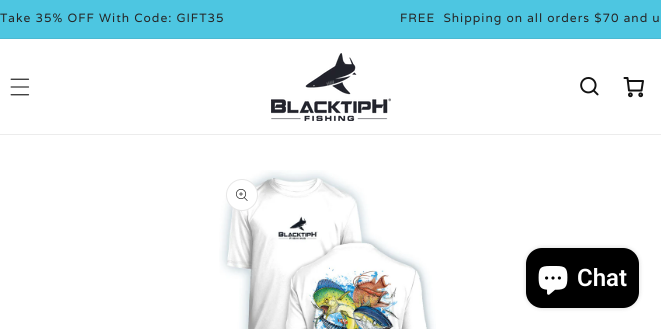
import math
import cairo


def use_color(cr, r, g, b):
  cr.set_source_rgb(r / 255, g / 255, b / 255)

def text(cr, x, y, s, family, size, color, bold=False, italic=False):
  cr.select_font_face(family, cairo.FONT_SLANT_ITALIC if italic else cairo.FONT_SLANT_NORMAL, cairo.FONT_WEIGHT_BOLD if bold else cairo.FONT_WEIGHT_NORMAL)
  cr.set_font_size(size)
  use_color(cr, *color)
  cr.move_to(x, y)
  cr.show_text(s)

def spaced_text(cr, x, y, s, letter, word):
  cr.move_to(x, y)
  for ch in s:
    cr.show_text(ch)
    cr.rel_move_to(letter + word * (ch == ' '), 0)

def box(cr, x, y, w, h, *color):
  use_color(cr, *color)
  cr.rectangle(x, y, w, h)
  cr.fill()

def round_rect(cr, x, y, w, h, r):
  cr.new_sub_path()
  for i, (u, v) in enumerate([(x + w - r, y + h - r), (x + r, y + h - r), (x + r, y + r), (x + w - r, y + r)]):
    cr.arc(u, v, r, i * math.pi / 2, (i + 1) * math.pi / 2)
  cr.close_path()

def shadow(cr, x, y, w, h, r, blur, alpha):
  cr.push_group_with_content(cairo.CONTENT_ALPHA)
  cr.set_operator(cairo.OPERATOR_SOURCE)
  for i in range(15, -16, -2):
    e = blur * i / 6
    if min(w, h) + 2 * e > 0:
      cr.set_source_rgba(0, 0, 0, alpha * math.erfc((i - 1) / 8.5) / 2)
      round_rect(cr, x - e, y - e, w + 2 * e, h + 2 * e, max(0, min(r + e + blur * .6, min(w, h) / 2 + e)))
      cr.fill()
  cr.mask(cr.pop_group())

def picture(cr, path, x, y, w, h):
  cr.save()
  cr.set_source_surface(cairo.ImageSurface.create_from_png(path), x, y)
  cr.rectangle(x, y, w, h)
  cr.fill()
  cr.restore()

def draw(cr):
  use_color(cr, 255, 255, 255)
  cr.paint()
  box(cr, 0, 0, 661, 38, 77, 198, 225)
  box(cr, 0, 38, 661, 1, 74, 185, 210)
  box(cr, 0, 134, 661, 1, 236, 236, 236)
  picture(cr, "img_01.png", 10, 78, 20, 18)
  picture(cr, "img_02.png", 271, 53, 120, 68)
  picture(cr, "img_03.png", 580, 77, 19, 19)
  cr.new_path()
  cr.move_to(628, 81)
  cr.line_to(643, 81)
  cr.line_to(641.5, 90.5)
  cr.line_to(629, 90.5)
  cr.line_to(627.5, 78)
  cr.line_to(624.5, 78)
  use_color(cr, 18, 18, 18)
  cr.set_line_cap(cairo.LINE_CAP_ROUND)
  cr.set_line_join(cairo.LINE_JOIN_ROUND)
  cr.stroke()
  cr.arc(630.4, 94.8, 1.4, 0, 2 * math.pi)
  cr.set_line_cap(cairo.LINE_CAP_BUTT)
  cr.set_line_join(cairo.LINE_JOIN_MITER)
  cr.stroke()
  cr.arc(640.7, 94.8, 1.4, 0, 2 * math.pi)
  cr.stroke()
  picture(cr, "img_04.png", 219, 170, 217, 159)
  use_color(cr, 255, 255, 255)
  cr.arc(242, 195, 16, 0, 2 * math.pi)
  cr.fill()
  cr.arc(242, 195, 15.5, 0, 2 * math.pi)
  cr.set_source_rgba(0.071, 0.071, 0.071, 0.1)
  cr.set_line_width(1)
  cr.stroke()
  picture(cr, "img_05.png", 236, 189, 12, 12)
  use_color(cr, 0, 0, 0)
  shadow(cr, 526, 248, 113, 60, 16, 2.5, 0.15)
  use_color(cr, 0, 0, 0)
  round_rect(cr, 526, 248, 113, 60, 16)
  cr.fill()
  picture(cr, "img_06.png", 538, 266, 30, 29)
  cr.select_font_face("Varela")
  cr.set_font_size(12)
  use_color(cr, 38, 37, 37)
  spaced_text(cr, 0, 22, "Take 35% OFF With Code: GIFT35", 1, 0)
  spaced_text(cr, 400, 22, "FREE  Shipping on all orders $70 and u", 1, 0)
  text(cr, 577, 286, "Chat", "Roboto SemiBold", 24, (255, 255, 255))


surface = cairo.ImageSurface(cairo.FORMAT_RGB24, 661, 329)
cr = cairo.Context(surface)
options = cairo.FontOptions()
options.set_hint_metrics(cairo.HINT_METRICS_OFF)
options.set_hint_style(cairo.HINT_STYLE_NONE)
cr.set_font_options(options)
cr.set_miter_limit(4)
draw(cr)
surface.write_to_png("out.png")
